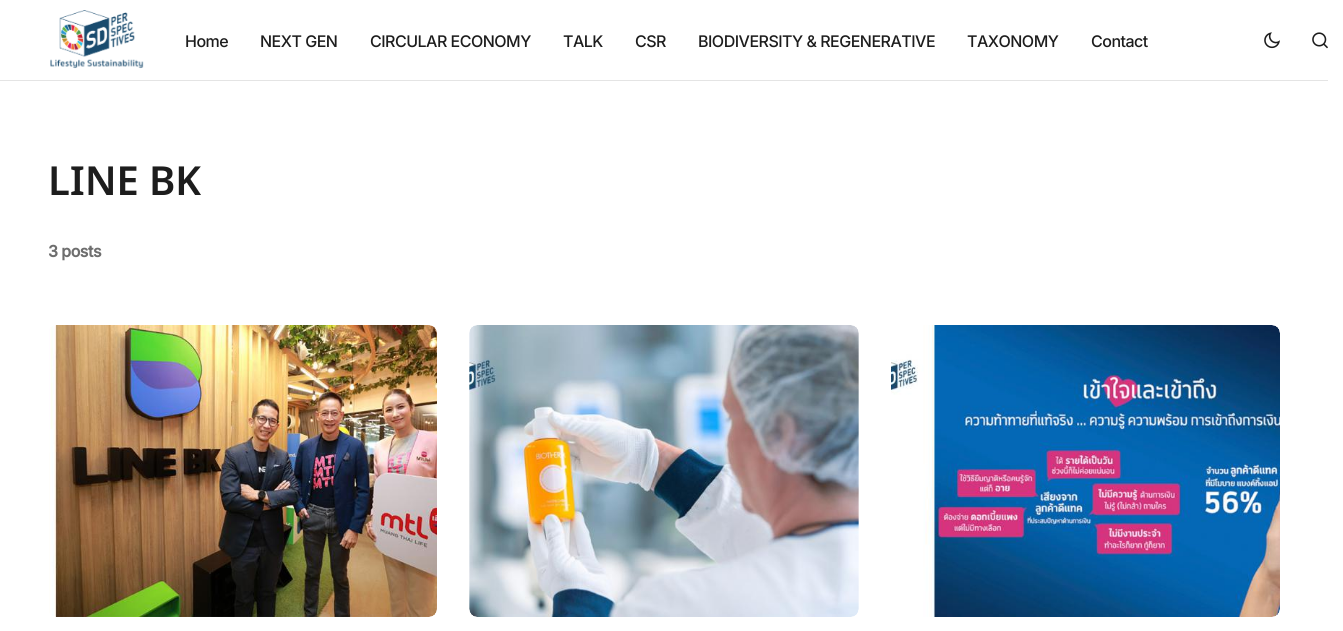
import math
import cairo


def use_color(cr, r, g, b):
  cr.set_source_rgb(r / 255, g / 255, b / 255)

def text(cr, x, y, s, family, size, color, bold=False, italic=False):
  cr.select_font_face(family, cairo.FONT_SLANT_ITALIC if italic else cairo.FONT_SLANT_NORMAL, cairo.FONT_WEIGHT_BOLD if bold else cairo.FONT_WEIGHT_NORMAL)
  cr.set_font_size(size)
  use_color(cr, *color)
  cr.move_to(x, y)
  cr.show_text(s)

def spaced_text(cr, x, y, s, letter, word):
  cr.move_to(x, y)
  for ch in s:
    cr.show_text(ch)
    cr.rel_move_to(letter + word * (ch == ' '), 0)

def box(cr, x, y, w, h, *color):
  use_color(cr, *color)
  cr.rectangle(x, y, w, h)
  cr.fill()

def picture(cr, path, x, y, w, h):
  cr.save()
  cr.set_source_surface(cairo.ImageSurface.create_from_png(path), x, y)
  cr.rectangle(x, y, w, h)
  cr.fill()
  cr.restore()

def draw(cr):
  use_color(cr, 255, 255, 255)
  cr.paint()
  picture(cr, "img_01.png", 50, 10, 94, 59)
  picture(cr, "img_02.png", 1264, 32, 16, 17)
  picture(cr, "img_03.png", 1312, 32, 16, 17)
  box(cr, 0, 80, 1328, 1, 228, 228, 228)
  picture(cr, "img_04.png", 49, 325, 388, 292)
  picture(cr, "img_05.png", 469, 325, 390, 292)
  picture(cr, "img_06.png", 891, 325, 389, 292)
  cr.select_font_face("Inter Medium")
  cr.set_font_size(16)
  use_color(cr, 29, 29, 29)
  spaced_text(cr, 185, 47, "Home", -0.5, 0)
  spaced_text(cr, 260, 47, "NEXT GEN", -0.5, 0)
  spaced_text(cr, 370, 47, "CIRCULAR ECONOMY", -0.5, 0)
  spaced_text(cr, 563, 47, "TALK", -0.5, 0)
  spaced_text(cr, 635, 47, "CSR", -0.5, 0)
  spaced_text(cr, 698, 47, "BIODIVERSITY & REGENERATIVE", -0.5, 0)
  spaced_text(cr, 967, 47, "TAXONOMY", -0.5, 0)
  spaced_text(cr, 1091, 47, "Contact", -0.5, 0)
  text(cr, 48, 195, "LINE BK", "Noto Sans Thai Looped SemiBold", 40, (29, 29, 29))
  cr.select_font_face("Inter", cairo.FONT_SLANT_NORMAL, cairo.FONT_WEIGHT_BOLD)
  cr.set_font_size(16)
  use_color(cr, 110, 110, 110)
  spaced_text(cr, 48, 257, "3 posts", -0.5, 0)


surface = cairo.ImageSurface(cairo.FORMAT_RGB24, 1343, 631)
cr = cairo.Context(surface)
options = cairo.FontOptions()
options.set_hint_metrics(cairo.HINT_METRICS_OFF)
options.set_hint_style(cairo.HINT_STYLE_NONE)
cr.set_font_options(options)
cr.set_miter_limit(4)
draw(cr)
surface.write_to_png("out.png")
